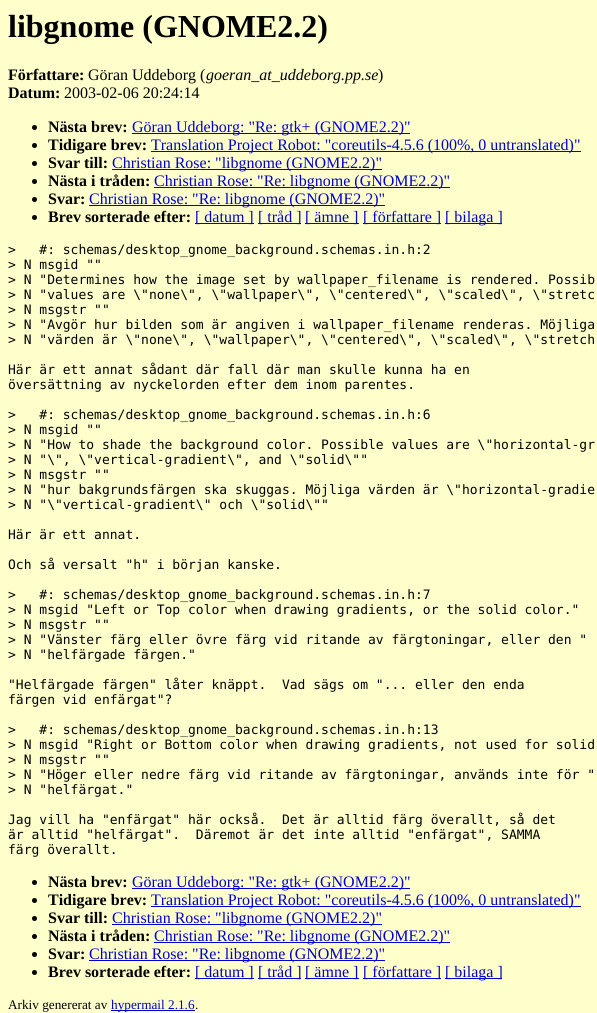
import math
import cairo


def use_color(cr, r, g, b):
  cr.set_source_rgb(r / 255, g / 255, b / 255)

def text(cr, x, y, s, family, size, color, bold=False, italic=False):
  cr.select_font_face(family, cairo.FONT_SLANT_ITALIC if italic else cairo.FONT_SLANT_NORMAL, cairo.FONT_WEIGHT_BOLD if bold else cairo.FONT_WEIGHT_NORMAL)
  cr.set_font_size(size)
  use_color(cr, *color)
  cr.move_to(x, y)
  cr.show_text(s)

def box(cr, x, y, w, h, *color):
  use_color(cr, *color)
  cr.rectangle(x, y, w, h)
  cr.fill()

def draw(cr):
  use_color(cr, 255, 255, 204)
  cr.paint()
  use_color(cr, 0, 0, 0)
  cr.arc(34.5, 127.5, 2.5, 0, 2 * math.pi)
  cr.fill()
  box(cr, 132, 133, 278, 1, 0, 0, 204)
  use_color(cr, 0, 0, 0)
  cr.arc(34.5, 145.5, 2.5, 0, 2 * math.pi)
  cr.fill()
  box(cr, 151, 151, 430, 1, 0, 0, 204)
  use_color(cr, 0, 0, 0)
  cr.arc(34.5, 163.5, 2.5, 0, 2 * math.pi)
  cr.fill()
  box(cr, 112, 169, 270, 1, 0, 0, 204)
  use_color(cr, 0, 0, 0)
  cr.arc(34.5, 181.5, 2.5, 0, 2 * math.pi)
  cr.fill()
  box(cr, 154, 187, 296, 1, 0, 0, 204)
  use_color(cr, 0, 0, 0)
  cr.arc(34.5, 199.5, 2.5, 0, 2 * math.pi)
  cr.fill()
  box(cr, 89, 205, 296, 1, 0, 0, 204)
  use_color(cr, 0, 0, 0)
  cr.arc(34.5, 217.5, 2.5, 0, 2 * math.pi)
  cr.fill()
  box(cr, 195, 223, 59, 1, 0, 0, 204)
  box(cr, 258, 223, 43, 1, 0, 0, 204)
  box(cr, 305, 223, 54, 1, 0, 0, 204)
  box(cr, 363, 223, 78, 1, 0, 0, 204)
  box(cr, 445, 223, 57, 1, 0, 0, 204)
  use_color(cr, 0, 0, 0)
  cr.arc(34.5, 882.5, 2.5, 0, 2 * math.pi)
  cr.fill()
  box(cr, 132, 888, 278, 1, 0, 0, 204)
  use_color(cr, 0, 0, 0)
  cr.arc(34.5, 900.5, 2.5, 0, 2 * math.pi)
  cr.fill()
  box(cr, 151, 906, 430, 1, 0, 0, 204)
  use_color(cr, 0, 0, 0)
  cr.arc(34.5, 918.5, 2.5, 0, 2 * math.pi)
  cr.fill()
  box(cr, 112, 924, 270, 1, 0, 0, 204)
  use_color(cr, 0, 0, 0)
  cr.arc(34.5, 936.5, 2.5, 0, 2 * math.pi)
  cr.fill()
  box(cr, 154, 942, 296, 1, 0, 0, 204)
  use_color(cr, 0, 0, 0)
  cr.arc(34.5, 954.5, 2.5, 0, 2 * math.pi)
  cr.fill()
  box(cr, 89, 960, 296, 1, 0, 0, 204)
  use_color(cr, 0, 0, 0)
  cr.arc(34.5, 972.5, 2.5, 0, 2 * math.pi)
  cr.fill()
  box(cr, 195, 978, 59, 1, 0, 0, 204)
  box(cr, 258, 978, 43, 1, 0, 0, 204)
  box(cr, 305, 978, 54, 1, 0, 0, 204)
  box(cr, 363, 978, 78, 1, 0, 0, 204)
  box(cr, 445, 978, 57, 1, 0, 0, 204)
  box(cr, 111, 1010, 84, 1, 0, 0, 204)
  text(cr, 8, 37, "libgnome (GNOME2.2)", "Liberation Serif", 32, (0, 0, 0), bold=True)
  text(cr, 8, 80, "Författare:", "Liberation Serif", 16, (0, 0, 0), bold=True)
  text(cr, 88, 80, "Göran Uddeborg (", "Liberation Serif", 16, (0, 0, 0))
  text(cr, 206, 80, "goeran_at_uddeborg.pp.se", "Liberation Serif", 16, (0, 0, 0), italic=True)
  text(cr, 378, 80, ")", "Liberation Serif", 16, (0, 0, 0))
  text(cr, 8, 98, "Datum:", "Liberation Serif", 16, (0, 0, 0), bold=True)
  text(cr, 64, 98, "2003-02-06 20:24:14", "Liberation Serif", 16, (0, 0, 0))
  text(cr, 48, 132, "Nästa brev:", "Liberation Serif", 16, (0, 0, 0), bold=True)
  text(cr, 132, 132, "Göran Uddeborg: \"Re: gtk+ (GNOME2.2)\"", "Liberation Serif", 16, (0, 0, 204))
  text(cr, 48, 150, "Tidigare brev:", "Liberation Serif", 16, (0, 0, 0), bold=True)
  text(cr, 151, 150, "Translation Project Robot: \"coreutils-4.5.6 (100%, 0 untranslated)\"", "Liberation Serif", 16, (0, 0, 204))
  text(cr, 48, 168, "Svar till:", "Liberation Serif", 16, (0, 0, 0), bold=True)
  text(cr, 112, 168, "Christian Rose: \"libgnome (GNOME2.2)\"", "Liberation Serif", 16, (0, 0, 204))
  text(cr, 48, 186, "Nästa i tråden:", "Liberation Serif", 16, (0, 0, 0), bold=True)
  text(cr, 154, 186, "Christian Rose: \"Re: libgnome (GNOME2.2)\"", "Liberation Serif", 16, (0, 0, 204))
  text(cr, 48, 204, "Svar:", "Liberation Serif", 16, (0, 0, 0), bold=True)
  text(cr, 89, 204, "Christian Rose: \"Re: libgnome (GNOME2.2)\"", "Liberation Serif", 16, (0, 0, 204))
  text(cr, 48, 222, "Brev sorterade efter:", "Liberation Serif", 16, (0, 0, 0), bold=True)
  text(cr, 195, 222, "[ datum ]", "Liberation Serif", 16, (0, 0, 204))
  text(cr, 258, 222, "[ tråd ]", "Liberation Serif", 16, (0, 0, 204))
  text(cr, 305, 222, "[ ämne ]", "Liberation Serif", 16, (0, 0, 204))
  text(cr, 363, 222, "[ författare ]", "Liberation Serif", 16, (0, 0, 204))
  text(cr, 445, 222, "[ bilaga ]", "Liberation Serif", 16, (0, 0, 204))
  text(cr, 8, 254, ">   #: schemas/desktop_gnome_background.schemas.in.h:2", "DejaVu Sans Mono", 13, (0, 0, 0))
  text(cr, 8, 269, "> N msgid \"\"", "DejaVu Sans Mono", 13, (0, 0, 0))
  text(cr, 8, 284, "> N \"Determines how the image set by wallpaper_filename is rendered. Possib", "DejaVu Sans Mono", 13, (0, 0, 0))
  text(cr, 8, 299, "> N \"values are \\\"none\\\", \\\"wallpaper\\\", \\\"centered\\\", \\\"scaled\\\", \\\"stretc", "DejaVu Sans Mono", 13, (0, 0, 0))
  text(cr, 8, 314, "> N msgstr \"\"", "DejaVu Sans Mono", 13, (0, 0, 0))
  text(cr, 8, 329, "> N \"Avgör hur bilden som är angiven i wallpaper_filename renderas. Möjliga", "DejaVu Sans Mono", 13, (0, 0, 0))
  text(cr, 8, 344, "> N \"värden är \\\"none\\\", \\\"wallpaper\\\", \\\"centered\\\", \\\"scaled\\\", \\\"stretch", "DejaVu Sans Mono", 13, (0, 0, 0))
  text(cr, 8, 374, "Här är ett annat sådant där fall där man skulle kunna ha en", "DejaVu Sans Mono", 13, (0, 0, 0))
  text(cr, 8, 389, "översättning av nyckelorden efter dem inom parentes.", "DejaVu Sans Mono", 13, (0, 0, 0))
  text(cr, 8, 419, ">   #: schemas/desktop_gnome_background.schemas.in.h:6", "DejaVu Sans Mono", 13, (0, 0, 0))
  text(cr, 8, 434, "> N msgid \"\"", "DejaVu Sans Mono", 13, (0, 0, 0))
  text(cr, 8, 449, "> N \"How to shade the background color. Possible values are \\\"horizontal-gr", "DejaVu Sans Mono", 13, (0, 0, 0))
  text(cr, 8, 464, "> N \"\\\", \\\"vertical-gradient\\\", and \\\"solid\\\"\"", "DejaVu Sans Mono", 13, (0, 0, 0))
  text(cr, 8, 479, "> N msgstr \"\"", "DejaVu Sans Mono", 13, (0, 0, 0))
  text(cr, 8, 494, "> N \"hur bakgrundsfärgen ska skuggas. Möjliga värden är \\\"horizontal-gradie", "DejaVu Sans Mono", 13, (0, 0, 0))
  text(cr, 8, 509, "> N \"\\\"vertical-gradient\\\" och \\\"solid\\\"\"", "DejaVu Sans Mono", 13, (0, 0, 0))
  text(cr, 8, 539, "Här är ett annat.", "DejaVu Sans Mono", 13, (0, 0, 0))
  text(cr, 8, 569, "Och så versalt \"h\" i början kanske.", "DejaVu Sans Mono", 13, (0, 0, 0))
  text(cr, 8, 599, ">   #: schemas/desktop_gnome_background.schemas.in.h:7", "DejaVu Sans Mono", 13, (0, 0, 0))
  text(cr, 8, 614, "> N msgid \"Left or Top color when drawing gradients, or the solid color.\"", "DejaVu Sans Mono", 13, (0, 0, 0))
  text(cr, 8, 629, "> N msgstr \"\"", "DejaVu Sans Mono", 13, (0, 0, 0))
  text(cr, 8, 644, "> N \"Vänster färg eller övre färg vid ritande av färgtoningar, eller den \"", "DejaVu Sans Mono", 13, (0, 0, 0))
  text(cr, 8, 659, "> N \"helfärgade färgen.\"", "DejaVu Sans Mono", 13, (0, 0, 0))
  text(cr, 8, 689, "\"Helfärgade färgen\" låter knäppt.  Vad sägs om \"... eller den enda", "DejaVu Sans Mono", 13, (0, 0, 0))
  text(cr, 8, 704, "färgen vid enfärgat\"?", "DejaVu Sans Mono", 13, (0, 0, 0))
  text(cr, 8, 734, ">   #: schemas/desktop_gnome_background.schemas.in.h:13", "DejaVu Sans Mono", 13, (0, 0, 0))
  text(cr, 8, 749, "> N msgid \"Right or Bottom color when drawing gradients, not used for solid", "DejaVu Sans Mono", 13, (0, 0, 0))
  text(cr, 8, 764, "> N msgstr \"\"", "DejaVu Sans Mono", 13, (0, 0, 0))
  text(cr, 8, 779, "> N \"Höger eller nedre färg vid ritande av färgtoningar, används inte för \"", "DejaVu Sans Mono", 13, (0, 0, 0))
  text(cr, 8, 794, "> N \"helfärgat.\"", "DejaVu Sans Mono", 13, (0, 0, 0))
  text(cr, 8, 824, "Jag vill ha \"enfärgat\" här också.  Det är alltid färg överallt, så det", "DejaVu Sans Mono", 13, (0, 0, 0))
  text(cr, 8, 839, "är alltid \"helfärgat\".  Däremot är det inte alltid \"enfärgat\", SAMMA", "DejaVu Sans Mono", 13, (0, 0, 0))
  text(cr, 8, 854, "färg överallt.", "DejaVu Sans Mono", 13, (0, 0, 0))
  text(cr, 48, 887, "Nästa brev:", "Liberation Serif", 16, (0, 0, 0), bold=True)
  text(cr, 132, 887, "Göran Uddeborg: \"Re: gtk+ (GNOME2.2)\"", "Liberation Serif", 16, (0, 0, 204))
  text(cr, 48, 905, "Tidigare brev:", "Liberation Serif", 16, (0, 0, 0), bold=True)
  text(cr, 151, 905, "Translation Project Robot: \"coreutils-4.5.6 (100%, 0 untranslated)\"", "Liberation Serif", 16, (0, 0, 204))
  text(cr, 48, 923, "Svar till:", "Liberation Serif", 16, (0, 0, 0), bold=True)
  text(cr, 112, 923, "Christian Rose: \"libgnome (GNOME2.2)\"", "Liberation Serif", 16, (0, 0, 204))
  text(cr, 48, 941, "Nästa i tråden:", "Liberation Serif", 16, (0, 0, 0), bold=True)
  text(cr, 154, 941, "Christian Rose: \"Re: libgnome (GNOME2.2)\"", "Liberation Serif", 16, (0, 0, 204))
  text(cr, 48, 959, "Svar:", "Liberation Serif", 16, (0, 0, 0), bold=True)
  text(cr, 89, 959, "Christian Rose: \"Re: libgnome (GNOME2.2)\"", "Liberation Serif", 16, (0, 0, 204))
  text(cr, 48, 977, "Brev sorterade efter:", "Liberation Serif", 16, (0, 0, 0), bold=True)
  text(cr, 195, 977, "[ datum ]", "Liberation Serif", 16, (0, 0, 204))
  text(cr, 258, 977, "[ tråd ]", "Liberation Serif", 16, (0, 0, 204))
  text(cr, 305, 977, "[ ämne ]", "Liberation Serif", 16, (0, 0, 204))
  text(cr, 363, 977, "[ författare ]", "Liberation Serif", 16, (0, 0, 204))
  text(cr, 445, 977, "[ bilaga ]", "Liberation Serif", 16, (0, 0, 204))
  text(cr, 8, 1009, "Arkiv genererat av", "Liberation Serif", 13.25, (0, 0, 0))
  text(cr, 111, 1009, "hypermail 2.1.6", "Liberation Serif", 13.25, (0, 0, 204))
  text(cr, 195, 1009, ".", "Liberation Serif", 13.25, (0, 0, 0))


surface = cairo.ImageSurface(cairo.FORMAT_RGB24, 597, 1013)
cr = cairo.Context(surface)
options = cairo.FontOptions()
options.set_hint_metrics(cairo.HINT_METRICS_OFF)
options.set_hint_style(cairo.HINT_STYLE_NONE)
cr.set_font_options(options)
cr.set_miter_limit(4)
draw(cr)
surface.write_to_png("out.png")
